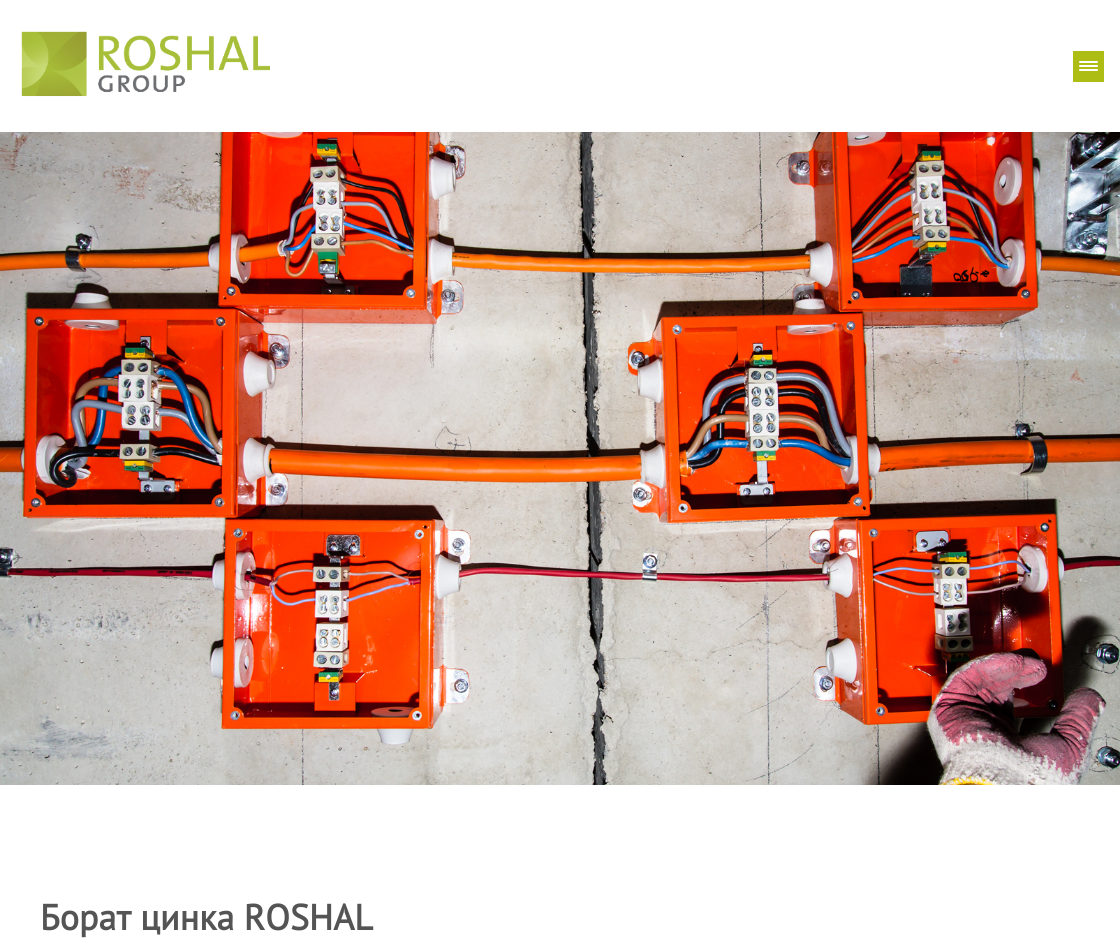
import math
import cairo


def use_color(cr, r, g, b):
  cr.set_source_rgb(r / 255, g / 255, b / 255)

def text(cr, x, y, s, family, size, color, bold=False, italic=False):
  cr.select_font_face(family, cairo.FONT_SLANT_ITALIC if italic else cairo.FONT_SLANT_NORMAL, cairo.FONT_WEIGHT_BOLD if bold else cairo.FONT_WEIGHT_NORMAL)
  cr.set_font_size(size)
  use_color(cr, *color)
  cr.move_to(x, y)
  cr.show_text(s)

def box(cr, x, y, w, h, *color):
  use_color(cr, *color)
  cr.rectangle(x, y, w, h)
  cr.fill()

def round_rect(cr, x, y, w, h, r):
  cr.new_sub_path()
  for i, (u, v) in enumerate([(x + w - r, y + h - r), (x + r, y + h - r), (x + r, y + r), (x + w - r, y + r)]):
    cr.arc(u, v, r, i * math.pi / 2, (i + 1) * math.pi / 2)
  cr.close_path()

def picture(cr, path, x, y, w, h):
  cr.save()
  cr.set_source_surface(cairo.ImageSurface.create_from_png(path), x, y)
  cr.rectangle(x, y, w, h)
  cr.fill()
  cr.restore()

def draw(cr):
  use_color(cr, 255, 255, 255)
  cr.paint()
  picture(cr, "img_01.png", 21, 31, 249, 66)
  box(cr, 1073, 51, 31, 31, 174, 189, 20)
  use_color(cr, 255, 255, 255)
  round_rect(cr, 1079, 61, 19, 2, 1)
  cr.fill()
  round_rect(cr, 1079, 65, 19, 2, 1)
  cr.fill()
  round_rect(cr, 1079, 69, 19, 2, 1)
  cr.fill()
  picture(cr, "img_02.png", 0, 132, 1120, 653)
  text(cr, 40, 930, "Борат цинка ROSHAL", "PT Sans", 36, (84, 84, 84), bold=True)


surface = cairo.ImageSurface(cairo.FORMAT_RGB24, 1120, 939)
cr = cairo.Context(surface)
options = cairo.FontOptions()
options.set_hint_metrics(cairo.HINT_METRICS_OFF)
options.set_hint_style(cairo.HINT_STYLE_NONE)
cr.set_font_options(options)
cr.set_miter_limit(4)
draw(cr)
surface.write_to_png("out.png")
